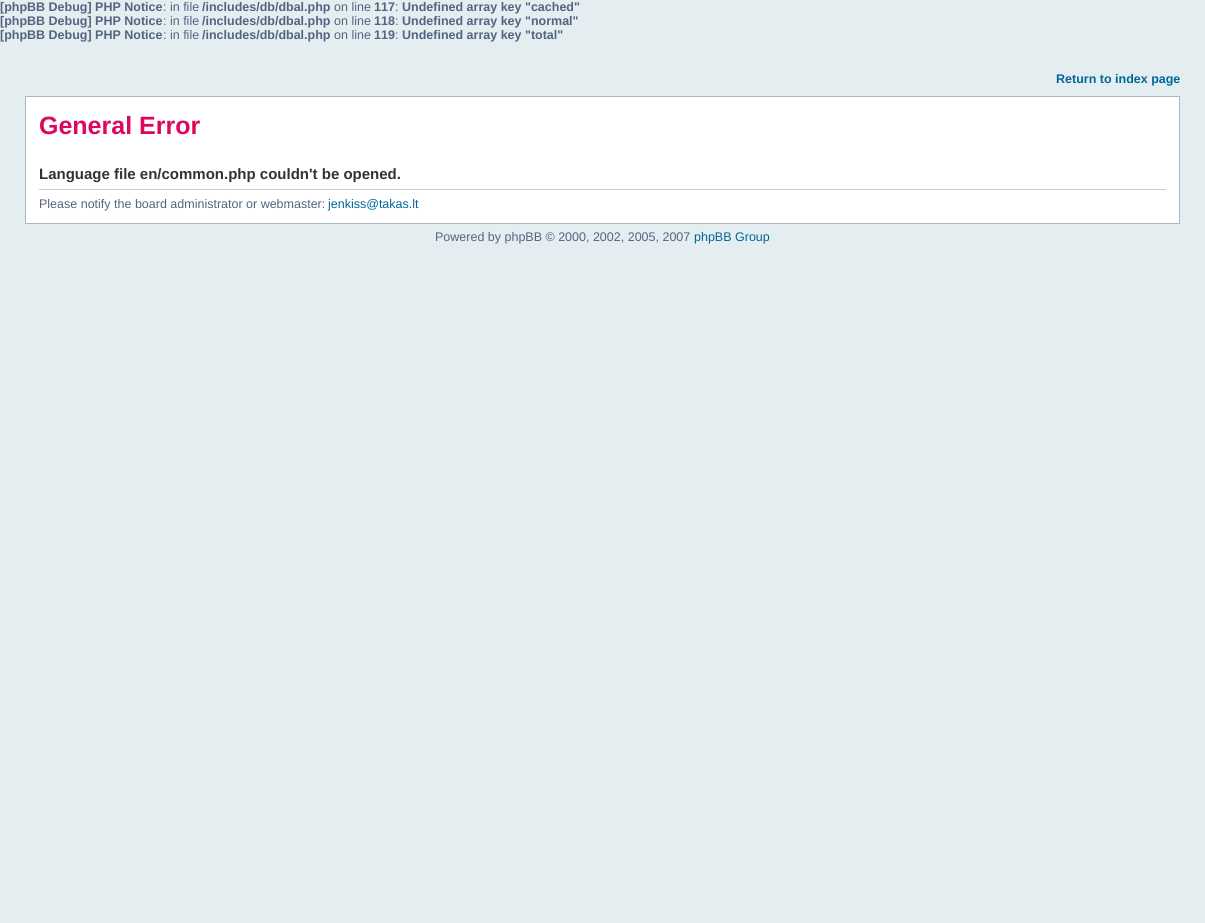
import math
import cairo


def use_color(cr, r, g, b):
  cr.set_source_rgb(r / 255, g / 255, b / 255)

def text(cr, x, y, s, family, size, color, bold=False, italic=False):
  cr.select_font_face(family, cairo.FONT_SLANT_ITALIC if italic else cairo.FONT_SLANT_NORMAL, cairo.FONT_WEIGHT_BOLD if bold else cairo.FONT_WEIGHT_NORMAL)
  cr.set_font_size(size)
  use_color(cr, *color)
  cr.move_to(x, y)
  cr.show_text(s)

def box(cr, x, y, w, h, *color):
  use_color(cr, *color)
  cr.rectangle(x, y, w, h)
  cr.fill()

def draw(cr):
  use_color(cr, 228, 237, 240)
  cr.paint()
  use_color(cr, 255, 255, 255)
  cr.rectangle(25.5, 96.5, 1154, 127)
  cr.fill_preserve()
  use_color(cr, 169, 184, 194)
  cr.set_line_width(1)
  cr.stroke()
  box(cr, 39, 189, 1127, 1, 204, 204, 204)
  text(cr, 0, 11, "[phpBB Debug] PHP Notice", "Liberation Sans", 12.5, (83, 100, 130), bold=True)
  text(cr, 163, 11, ": in file", "Liberation Sans", 12.5, (83, 100, 130))
  text(cr, 202, 11, "/includes/db/dbal.php", "Liberation Sans", 12.5, (83, 100, 130), bold=True)
  text(cr, 334, 11, "on line", "Liberation Sans", 12.5, (83, 100, 130))
  text(cr, 374, 11, "117", "Liberation Sans", 12.5, (83, 100, 130), bold=True)
  text(cr, 395, 11, ":", "Liberation Sans", 12.5, (83, 100, 130))
  text(cr, 402, 11, "Undefined array key \"cached\"", "Liberation Sans", 12.5, (83, 100, 130), bold=True)
  text(cr, 0, 25, "[phpBB Debug] PHP Notice", "Liberation Sans", 12.5, (83, 100, 130), bold=True)
  text(cr, 163, 25, ": in file", "Liberation Sans", 12.5, (83, 100, 130))
  text(cr, 202, 25, "/includes/db/dbal.php", "Liberation Sans", 12.5, (83, 100, 130), bold=True)
  text(cr, 334, 25, "on line", "Liberation Sans", 12.5, (83, 100, 130))
  text(cr, 374, 25, "118", "Liberation Sans", 12.5, (83, 100, 130), bold=True)
  text(cr, 395, 25, ":", "Liberation Sans", 12.5, (83, 100, 130))
  text(cr, 402, 25, "Undefined array key \"normal\"", "Liberation Sans", 12.5, (83, 100, 130), bold=True)
  text(cr, 0, 39, "[phpBB Debug] PHP Notice", "Liberation Sans", 12.5, (83, 100, 130), bold=True)
  text(cr, 163, 39, ": in file", "Liberation Sans", 12.5, (83, 100, 130))
  text(cr, 202, 39, "/includes/db/dbal.php", "Liberation Sans", 12.5, (83, 100, 130), bold=True)
  text(cr, 334, 39, "on line", "Liberation Sans", 12.5, (83, 100, 130))
  text(cr, 374, 39, "119", "Liberation Sans", 12.5, (83, 100, 130), bold=True)
  text(cr, 395, 39, ":", "Liberation Sans", 12.5, (83, 100, 130))
  text(cr, 402, 39, "Undefined array key \"total\"", "Liberation Sans", 12.5, (83, 100, 130), bold=True)
  text(cr, 1056, 83, "Return to index page", "Liberation Sans", 12.5, (0, 102, 153), bold=True)
  text(cr, 39, 134, "General Error", "Liberation Sans", 25, (223, 7, 92), bold=True)
  text(cr, 39, 179, "Language file en/common.php couldn't be opened.", "Liberation Sans", 15, (51, 51, 51), bold=True)
  text(cr, 39, 208, "Please notify the board administrator or webmaster:", "Liberation Sans", 12.5, (83, 100, 130))
  text(cr, 328, 208, "jenkiss@takas.lt", "Liberation Sans", 12.5, (0, 102, 153))
  text(cr, 435, 241, "Powered by phpBB © 2000, 2002, 2005, 2007", "Liberation Sans", 12.5, (83, 100, 130))
  text(cr, 694, 241, "phpBB Group", "Liberation Sans", 12.5, (0, 102, 153))


surface = cairo.ImageSurface(cairo.FORMAT_RGB24, 1205, 923)
cr = cairo.Context(surface)
options = cairo.FontOptions()
options.set_hint_metrics(cairo.HINT_METRICS_OFF)
options.set_hint_style(cairo.HINT_STYLE_NONE)
cr.set_font_options(options)
cr.set_miter_limit(4)
draw(cr)
surface.write_to_png("out.png")
